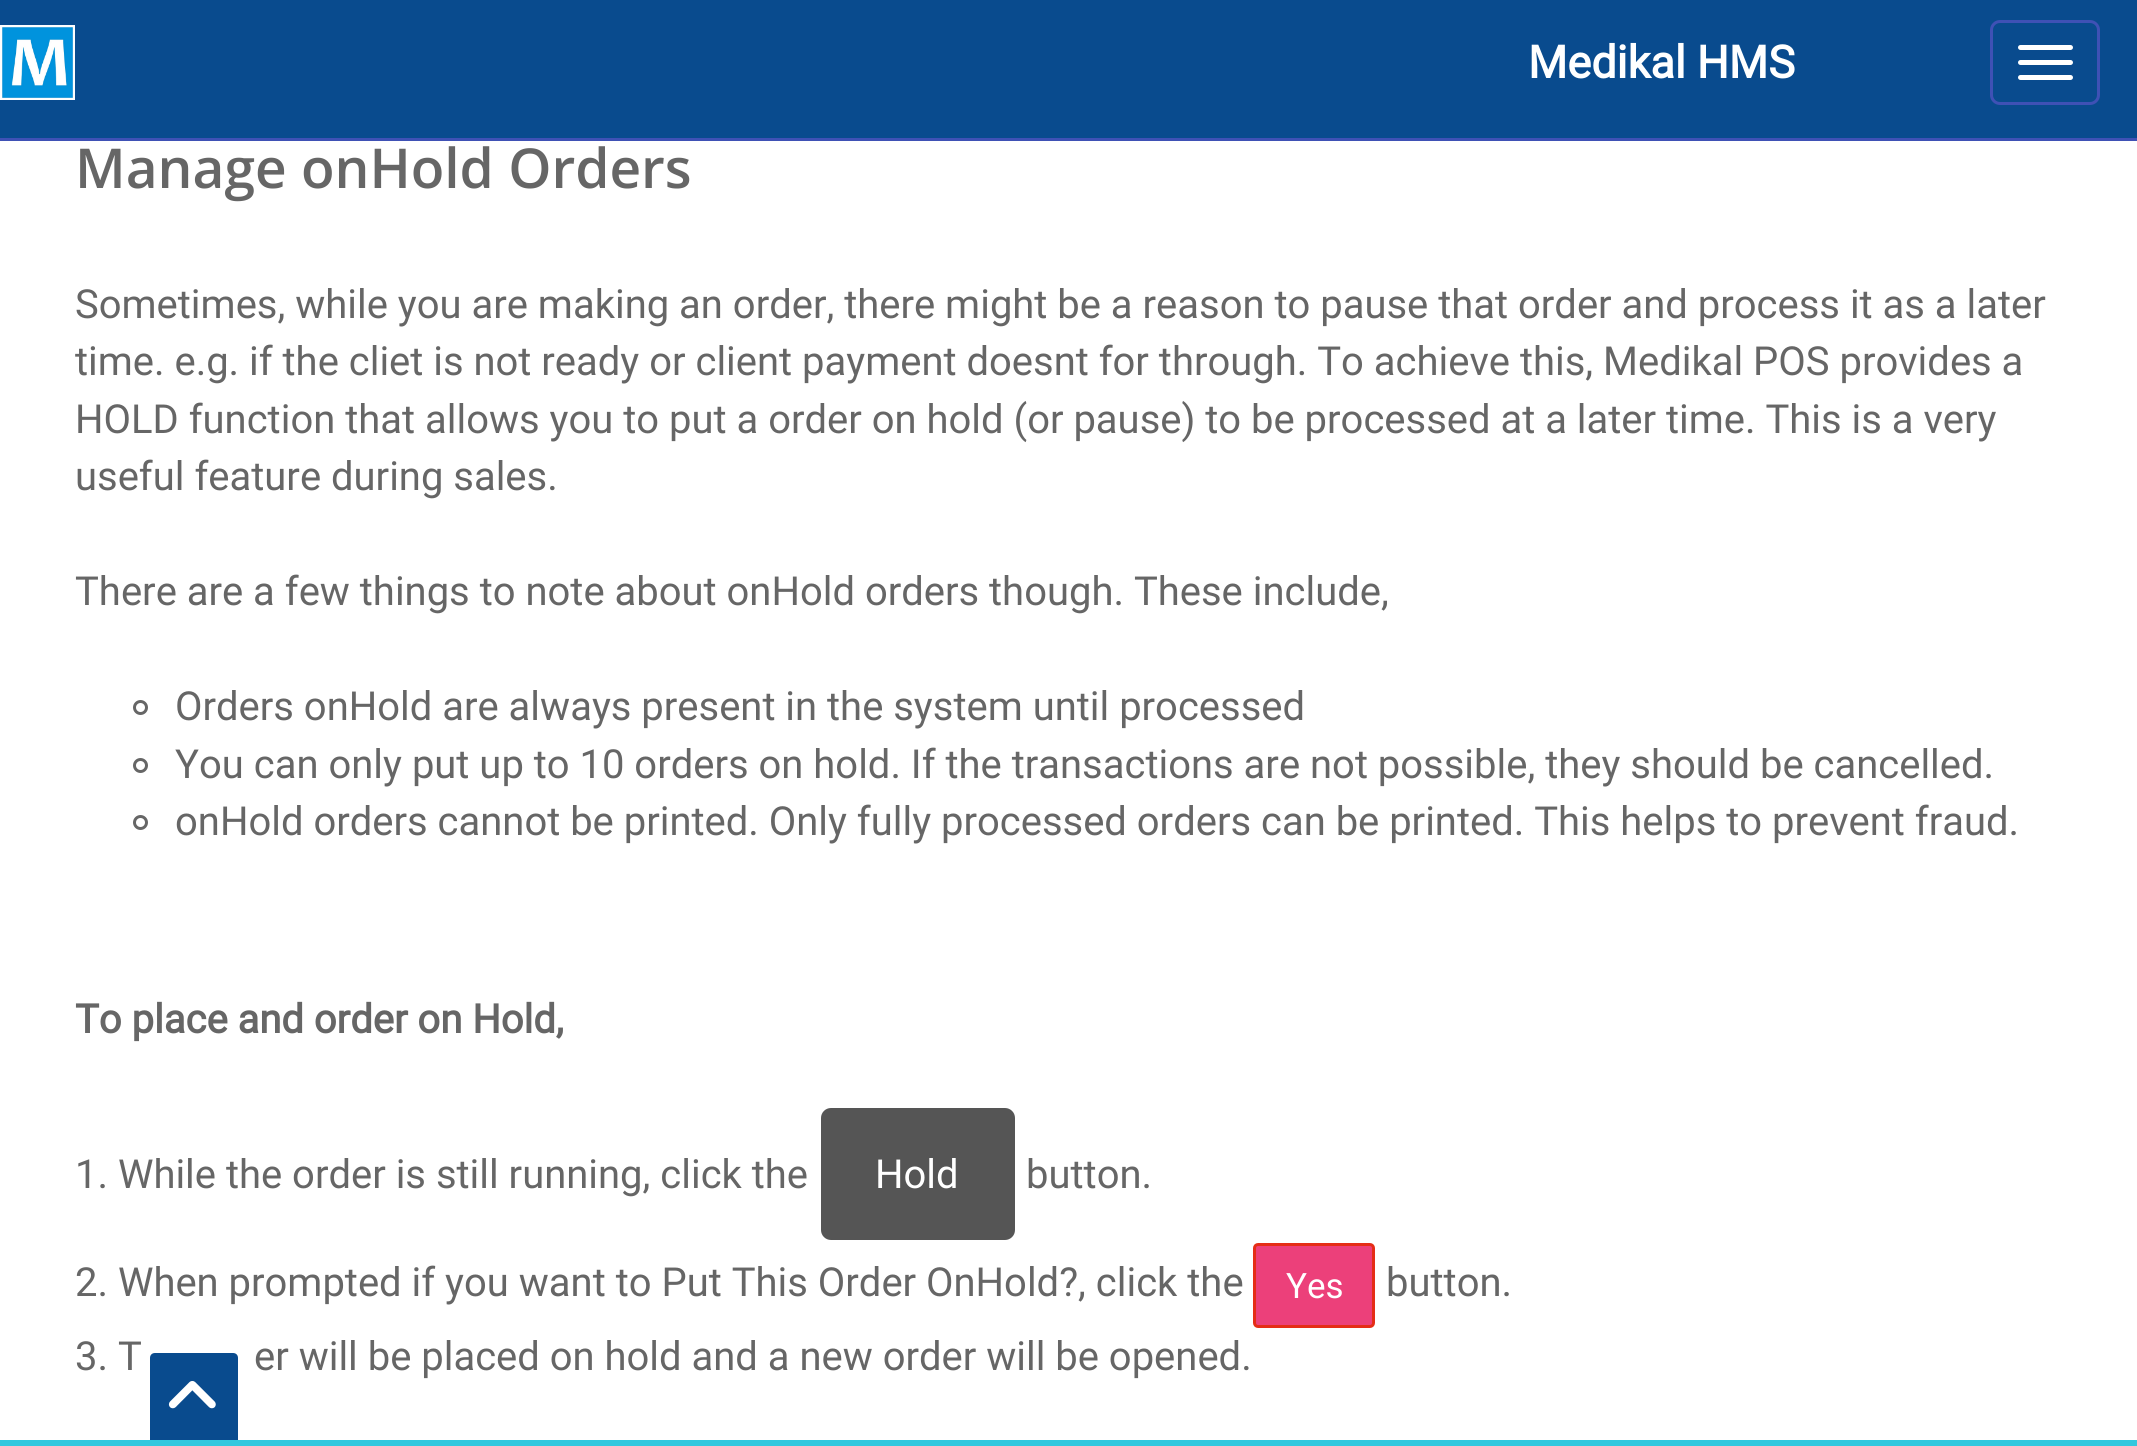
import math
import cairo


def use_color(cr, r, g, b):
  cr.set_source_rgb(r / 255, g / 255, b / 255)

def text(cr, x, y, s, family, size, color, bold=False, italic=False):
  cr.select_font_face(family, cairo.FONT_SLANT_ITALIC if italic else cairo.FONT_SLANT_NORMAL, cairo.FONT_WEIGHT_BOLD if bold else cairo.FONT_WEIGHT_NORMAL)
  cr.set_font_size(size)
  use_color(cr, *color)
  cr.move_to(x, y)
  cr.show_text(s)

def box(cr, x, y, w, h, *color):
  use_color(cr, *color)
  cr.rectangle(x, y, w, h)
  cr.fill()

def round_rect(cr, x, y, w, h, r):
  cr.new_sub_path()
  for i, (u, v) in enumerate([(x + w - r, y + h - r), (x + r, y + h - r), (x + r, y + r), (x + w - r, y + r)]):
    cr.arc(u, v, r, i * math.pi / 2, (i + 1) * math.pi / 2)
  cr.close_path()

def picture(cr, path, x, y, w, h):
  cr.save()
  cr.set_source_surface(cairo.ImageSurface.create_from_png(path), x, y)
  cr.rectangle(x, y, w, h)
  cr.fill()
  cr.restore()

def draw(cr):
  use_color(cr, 255, 255, 255)
  cr.paint()
  box(cr, 0, 0, 2137, 138, 9, 75, 142)
  box(cr, 0, 138, 2137, 3, 63, 81, 181)
  picture(cr, "img_01.png", 0, 25, 75, 75)
  round_rect(cr, 1991.5, 21.5, 107, 82, 8.5)
  cr.set_line_width(3)
  cr.stroke()
  use_color(cr, 255, 255, 255)
  round_rect(cr, 2018, 45, 55, 5, 2.5)
  cr.fill()
  round_rect(cr, 2018, 60, 55, 5, 2.5)
  cr.fill()
  round_rect(cr, 2018, 75, 55, 5, 2.5)
  cr.fill()
  cr.arc(140.5, 707.5, 6, 0, 2 * math.pi)
  use_color(cr, 102, 102, 102)
  cr.stroke()
  cr.arc(140.5, 765.5, 6, 0, 2 * math.pi)
  cr.stroke()
  cr.arc(140.5, 822.5, 6, 0, 2 * math.pi)
  cr.stroke()
  use_color(cr, 85, 85, 85)
  round_rect(cr, 819.5, 1106.5, 197, 135, 11.5)
  cr.fill_preserve()
  use_color(cr, 255, 255, 255)
  cr.stroke()
  use_color(cr, 236, 64, 122)
  round_rect(cr, 1254.5, 1244.5, 119, 82, 3.5)
  cr.fill_preserve()
  use_color(cr, 229, 45, 22)
  cr.stroke()
  box(cr, 0, 1440, 2137, 6, 50, 200, 222)
  use_color(cr, 9, 75, 142)
  cr.new_path()
  cr.move_to(155, 1353)
  cr.line_to(233, 1353)
  cr.curve_to(236, 1353, 238, 1355, 238, 1358)
  cr.line_to(238, 1440)
  cr.line_to(150, 1440)
  cr.line_to(150, 1358)
  cr.curve_to(150, 1355, 152, 1353, 155, 1353)
  cr.close_path()
  cr.fill()
  picture(cr, "img_02.png", 168, 1381, 48, 28)
  text(cr, 1528, 78, "Medikal HMS", "Roboto", 45, (255, 255, 255), bold=True)
  text(cr, 75, 188, "Manage onHold Orders", "Open Sans SemiBold", 55, (102, 102, 102))
  text(cr, 75, 318, "Sometimes, while you are making an order, there might be a reason to pause that order and process it as a later", "Roboto", 40, (102, 102, 102))
  text(cr, 75, 375, "time. e.g. if the cliet is not ready or client payment doesnt for through. To achieve this, Medikal POS provides a", "Roboto", 40, (102, 102, 102))
  text(cr, 75, 433, "HOLD function that allows you to put a order on hold (or pause) to be processed at a later time. This is a very", "Roboto", 40, (102, 102, 102))
  text(cr, 75, 490, "useful feature during sales.", "Roboto", 40, (102, 102, 102))
  text(cr, 75, 605, "There are a few things to note about onHold orders though. These include,", "Roboto", 40, (102, 102, 102))
  text(cr, 175, 720, "Orders onHold are always present in the system until processed", "Roboto", 40, (102, 102, 102))
  text(cr, 175, 778, "You can only put up to 10 orders on hold. If the transactions are not possible, they should be cancelled.", "Roboto", 40, (102, 102, 102))
  text(cr, 175, 835, "onHold orders cannot be printed. Only fully processed orders can be printed. This helps to prevent fraud.", "Roboto", 40, (102, 102, 102))
  text(cr, 75, 1033, "To place and order on Hold,", "Roboto", 40, (102, 102, 102), bold=True)
  text(cr, 75, 1188, "1. While the order is still running, click the", "Roboto", 40, (102, 102, 102))
  text(cr, 875, 1188, "Hold", "Roboto", 40, (255, 255, 255))
  text(cr, 1026, 1188, "button.", "Roboto", 40, (102, 102, 102))
  text(cr, 75, 1296, "2. When prompted if you want to Put This Order OnHold?, click the", "Roboto", 40, (102, 102, 102))
  text(cr, 1286, 1298, "Yes", "Roboto", 35, (255, 255, 255))
  text(cr, 1386, 1296, "button.", "Roboto", 40, (102, 102, 102))
  text(cr, 75, 1370, "3. T", "Roboto", 40, (102, 102, 102))
  text(cr, 254, 1370, "er will be placed on hold and a new order will be opened.", "Roboto", 40, (102, 102, 102))


surface = cairo.ImageSurface(cairo.FORMAT_RGB24, 2137, 1446)
cr = cairo.Context(surface)
options = cairo.FontOptions()
options.set_hint_metrics(cairo.HINT_METRICS_OFF)
options.set_hint_style(cairo.HINT_STYLE_NONE)
cr.set_font_options(options)
cr.set_miter_limit(4)
draw(cr)
surface.write_to_png("out.png")
